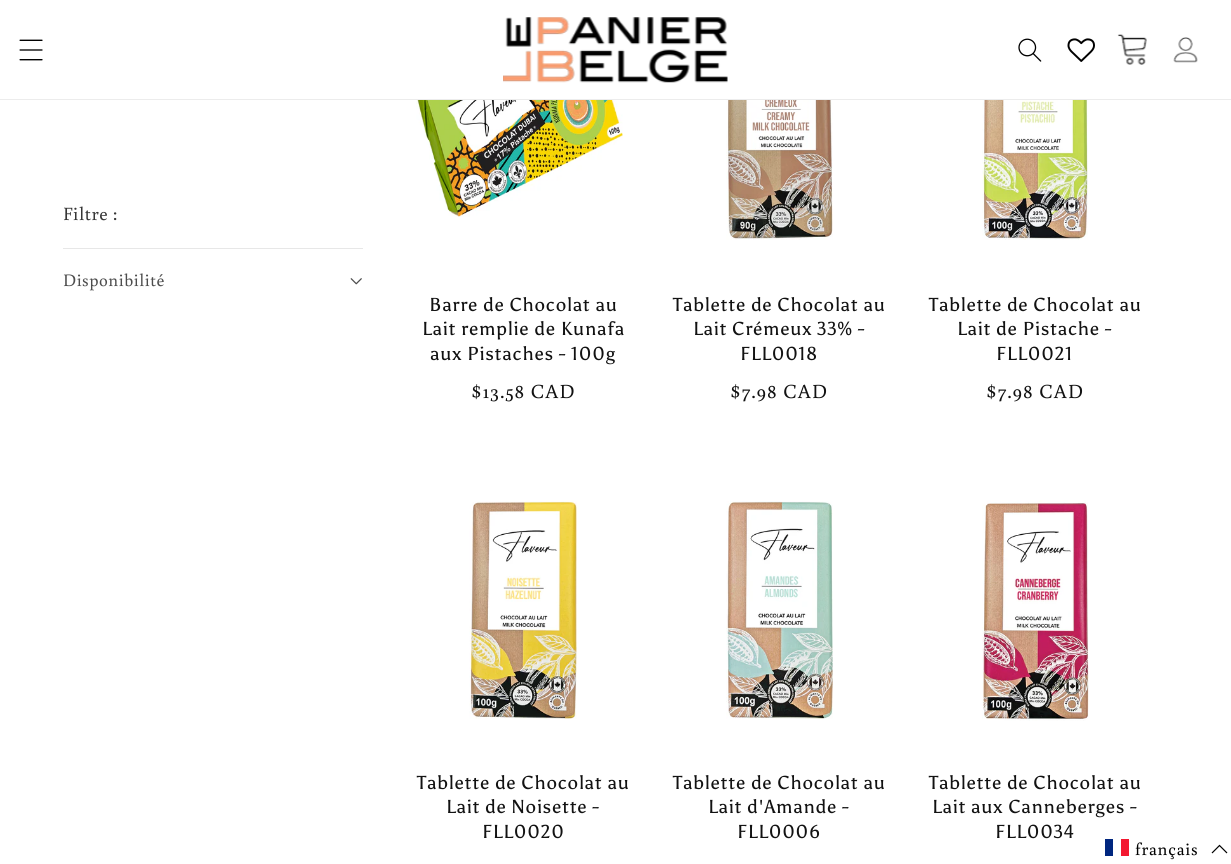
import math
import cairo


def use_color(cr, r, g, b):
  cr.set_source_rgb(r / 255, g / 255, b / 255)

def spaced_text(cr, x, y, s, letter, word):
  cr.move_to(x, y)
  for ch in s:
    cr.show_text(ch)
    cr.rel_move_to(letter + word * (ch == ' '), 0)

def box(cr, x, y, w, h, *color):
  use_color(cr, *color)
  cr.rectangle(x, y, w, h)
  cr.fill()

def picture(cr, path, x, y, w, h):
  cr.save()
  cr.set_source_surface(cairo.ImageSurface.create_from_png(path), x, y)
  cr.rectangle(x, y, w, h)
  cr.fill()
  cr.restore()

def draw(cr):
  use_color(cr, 255, 255, 255)
  cr.paint()
  box(cr, 0, 99, 1231, 1, 236, 236, 236)
  picture(cr, "img_01.png", 19, 39, 24, 22)
  picture(cr, "img_02.png", 503, 17, 225, 66)
  picture(cr, "img_03.png", 1018, 38, 24, 24)
  picture(cr, "img_04.png", 1067, 38, 28, 24)
  picture(cr, "img_05.png", 1117, 34, 30, 31)
  picture(cr, "img_06.png", 1173, 37, 25, 26)
  box(cr, 63, 248, 300, 1, 231, 231, 231)
  picture(cr, "img_07.png", 350, 278, 12, 7)
  picture(cr, "img_08.png", 416, 100, 207, 117)
  picture(cr, "img_09.png", 726, 100, 107, 140)
  picture(cr, "img_10.png", 982, 100, 106, 140)
  picture(cr, "img_11.png", 469, 501, 108, 218)
  picture(cr, "img_12.png", 726, 501, 107, 218)
  picture(cr, "img_13.png", 982, 500, 107, 221)
  box(cr, 1105, 839, 8, 17, 0, 38, 127)
  box(cr, 1121, 839, 8, 17, 243, 24, 48)
  cr.new_path()
  cr.move_to(1227, 853)
  cr.line_to(1219.5, 845.5)
  cr.line_to(1212, 853)
  use_color(cr, 0, 0, 0)
  cr.set_line_width(1.2)
  cr.stroke()
  cr.select_font_face("Buenard")
  cr.set_font_size(18.75)
  use_color(cr, 54, 54, 54)
  spaced_text(cr, 63, 220, "Filtre :", 0.5, 0)
  cr.set_font_size(17.5)
  use_color(cr, 77, 77, 77)
  spaced_text(cr, 63, 286, "Disponibilité", 0.5, 0)
  cr.select_font_face("Asul")
  cr.set_font_size(18.75)
  use_color(cr, 18, 18, 18)
  spaced_text(cr, 429, 311, "Barre de Chocolat au", 0.75, 0)
  spaced_text(cr, 422, 335, "Lait remplie de Kunafa", 0.75, 0)
  spaced_text(cr, 430, 360, "aux Pistaches - 100g", 0.75, 0)
  cr.select_font_face("Buenard")
  cr.set_font_size(20)
  spaced_text(cr, 471, 398, "$13.58 CAD", 1.25, 0)
  cr.select_font_face("Asul")
  cr.set_font_size(18.75)
  spaced_text(cr, 673, 311, "Tablette de Chocolat au", 0.75, 0)
  spaced_text(cr, 693, 335, "Lait Crémeux 33% -", 0.75, 0)
  spaced_text(cr, 740, 360, "FLL0018", 0.75, 0)
  cr.select_font_face("Buenard")
  cr.set_font_size(20)
  spaced_text(cr, 730, 398, "$7.98 CAD", 1.25, 0)
  cr.select_font_face("Asul")
  cr.set_font_size(18.75)
  spaced_text(cr, 929, 311, "Tablette de Chocolat au", 0.75, 0)
  spaced_text(cr, 957, 335, "Lait de Pistache -", 0.75, 0)
  spaced_text(cr, 996, 360, "FLL0021", 0.75, 0)
  cr.select_font_face("Buenard")
  cr.set_font_size(20)
  spaced_text(cr, 986, 398, "$7.98 CAD", 1.25, 0)
  cr.select_font_face("Asul")
  cr.set_font_size(18.75)
  spaced_text(cr, 417, 789, "Tablette de Chocolat au", 0.75, 0)
  spaced_text(cr, 446, 813, "Lait de Noisette -", 0.75, 0)
  spaced_text(cr, 482, 838, "FLL0020", 0.75, 0)
  spaced_text(cr, 673, 789, "Tablette de Chocolat au", 0.75, 0)
  spaced_text(cr, 708, 813, "Lait d'Amande -", 0.75, 0)
  spaced_text(cr, 737, 838, "FLL0006", 0.75, 0)
  spaced_text(cr, 929, 789, "Tablette de Chocolat au", 0.75, 0)
  spaced_text(cr, 932, 813, "Lait aux Canneberges -", 0.75, 0)
  spaced_text(cr, 995, 838, "FLL0034", 0.75, 0)
  cr.select_font_face("Buenard")
  cr.set_font_size(17.5)
  use_color(cr, 0, 0, 0)
  spaced_text(cr, 1135, 855, "français", 0.75, 0)


surface = cairo.ImageSurface(cairo.FORMAT_RGB24, 1231, 864)
cr = cairo.Context(surface)
options = cairo.FontOptions()
options.set_hint_metrics(cairo.HINT_METRICS_OFF)
options.set_hint_style(cairo.HINT_STYLE_NONE)
cr.set_font_options(options)
cr.set_miter_limit(4)
draw(cr)
surface.write_to_png("out.png")
